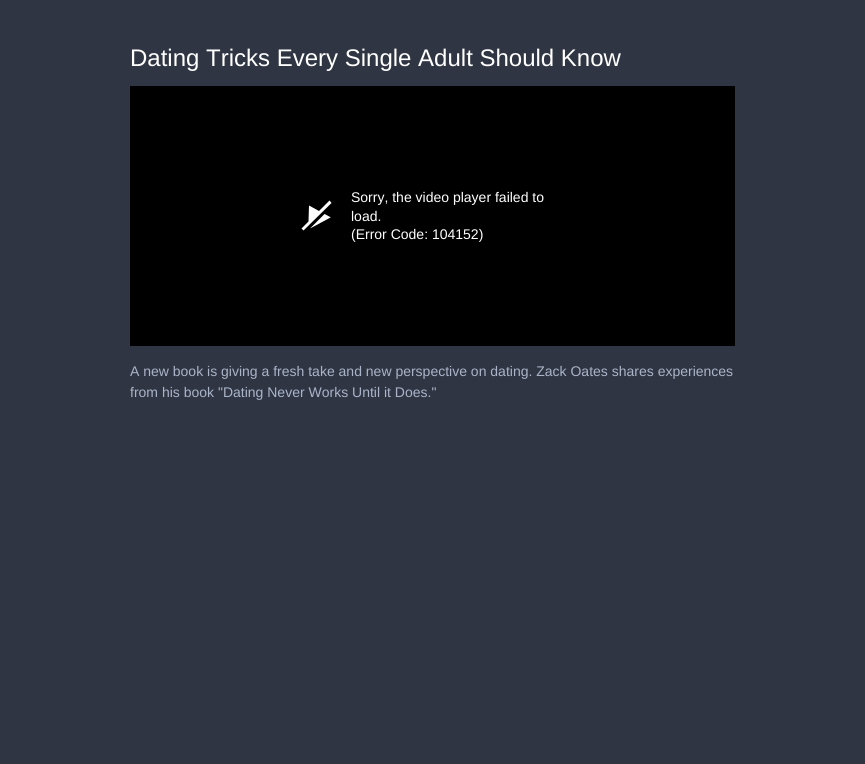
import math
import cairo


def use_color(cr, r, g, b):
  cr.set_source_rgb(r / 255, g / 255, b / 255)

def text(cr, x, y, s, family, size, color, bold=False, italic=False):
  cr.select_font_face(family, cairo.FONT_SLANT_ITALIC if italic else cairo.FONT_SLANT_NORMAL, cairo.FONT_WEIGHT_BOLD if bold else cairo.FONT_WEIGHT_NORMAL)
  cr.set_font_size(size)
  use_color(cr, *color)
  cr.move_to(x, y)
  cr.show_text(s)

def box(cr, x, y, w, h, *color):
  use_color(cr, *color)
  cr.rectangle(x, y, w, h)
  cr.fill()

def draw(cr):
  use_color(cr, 47, 53, 66)
  cr.paint()
  box(cr, 130, 86, 605, 260, 0, 0, 0)
  use_color(cr, 255, 255, 255)
  cr.new_path()
  cr.move_to(330.5, 217.5)
  cr.line_to(310, 228.5)
  cr.line_to(324.5, 214)
  cr.curve_to(330, 217, 331.5, 217.5, 330.5, 217.5)
  cr.close_path()
  cr.move_to(329.5, 200.5)
  cr.line_to(319, 211)
  cr.line_to(309, 205.5)
  cr.line_to(308.5, 221.5)
  cr.line_to(301.5, 228.5)
  cr.line_to(303.5, 230.5)
  cr.line_to(331.5, 203)
  cr.close_path()
  cr.fill()
  text(cr, 130, 66, "Dating Tricks Every Single Adult Should Know", "Liberation Sans", 24, (255, 255, 255))
  text(cr, 351, 202, "Sorry, the video player failed to", "Liberation Sans", 14, (255, 255, 255))
  text(cr, 351, 221, "load.", "Liberation Sans", 14, (255, 255, 255))
  text(cr, 351, 239, "(Error Code: 104152)", "Liberation Sans", 14, (255, 255, 255))
  text(cr, 130, 376, "A new book is giving a fresh take and new perspective on dating. Zack Oates shares experiences", "Liberation Sans", 14, (170, 180, 200))
  text(cr, 130, 397, "from his book \"Dating Never Works Until it Does.\"", "Liberation Sans", 14, (170, 180, 200))


surface = cairo.ImageSurface(cairo.FORMAT_RGB24, 865, 764)
cr = cairo.Context(surface)
options = cairo.FontOptions()
options.set_hint_metrics(cairo.HINT_METRICS_OFF)
options.set_hint_style(cairo.HINT_STYLE_NONE)
cr.set_font_options(options)
cr.set_miter_limit(4)
draw(cr)
surface.write_to_png("out.png")
